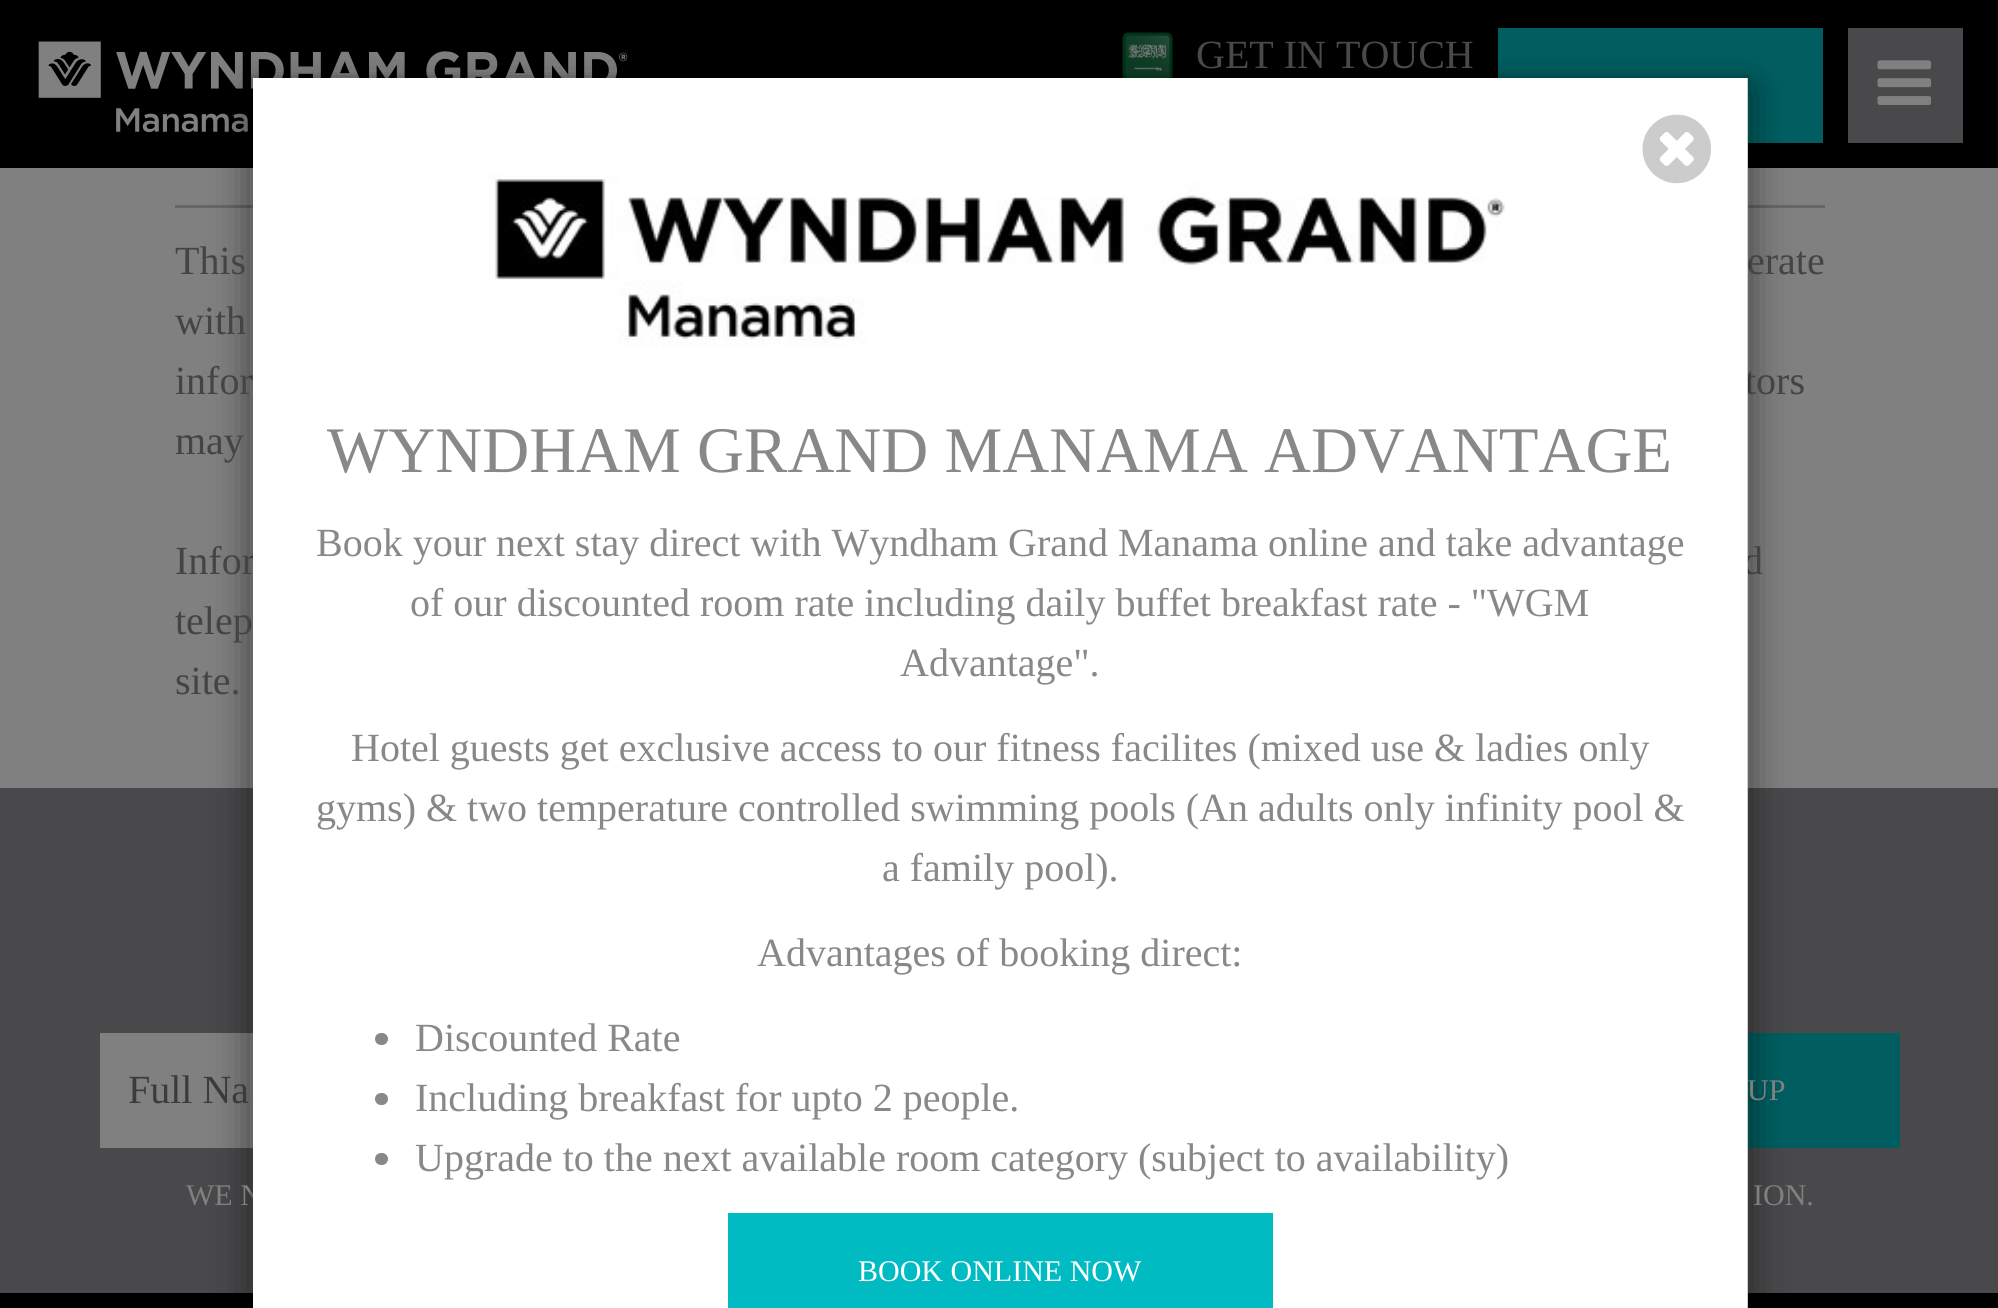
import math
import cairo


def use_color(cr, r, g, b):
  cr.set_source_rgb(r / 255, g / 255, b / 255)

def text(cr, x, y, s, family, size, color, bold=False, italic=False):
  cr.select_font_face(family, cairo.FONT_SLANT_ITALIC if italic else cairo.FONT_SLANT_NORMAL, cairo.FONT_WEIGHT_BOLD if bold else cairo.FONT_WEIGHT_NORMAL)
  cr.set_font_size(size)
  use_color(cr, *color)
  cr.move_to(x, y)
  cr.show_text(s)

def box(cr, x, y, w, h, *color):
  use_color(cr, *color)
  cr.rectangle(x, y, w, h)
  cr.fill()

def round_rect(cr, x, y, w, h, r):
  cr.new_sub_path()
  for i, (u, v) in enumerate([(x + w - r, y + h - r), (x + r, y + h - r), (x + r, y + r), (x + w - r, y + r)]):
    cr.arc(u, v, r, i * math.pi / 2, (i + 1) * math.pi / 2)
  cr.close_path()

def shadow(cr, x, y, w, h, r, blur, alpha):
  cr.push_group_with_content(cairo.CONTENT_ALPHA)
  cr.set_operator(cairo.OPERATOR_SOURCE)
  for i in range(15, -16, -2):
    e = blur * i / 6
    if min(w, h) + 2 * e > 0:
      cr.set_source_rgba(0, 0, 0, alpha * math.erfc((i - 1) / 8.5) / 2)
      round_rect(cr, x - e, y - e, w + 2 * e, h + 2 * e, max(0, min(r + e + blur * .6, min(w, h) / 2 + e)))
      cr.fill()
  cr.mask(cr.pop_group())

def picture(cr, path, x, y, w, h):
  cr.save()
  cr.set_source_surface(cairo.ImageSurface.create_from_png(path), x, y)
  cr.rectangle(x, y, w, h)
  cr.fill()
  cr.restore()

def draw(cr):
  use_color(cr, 128, 128, 128)
  cr.paint()
  box(cr, 0, 0, 1998, 168, 0, 0, 0)
  picture(cr, "img_01.png", 38, 41, 590, 92)
  picture(cr, "img_02.png", 1122, 32, 51, 46)
  box(cr, 1498, 28, 325, 115, 0, 94, 97)
  box(cr, 1848, 28, 115, 115, 73, 73, 75)
  picture(cr, "img_03.png", 1877, 60, 55, 45)
  box(cr, 175, 205, 1650, 3, 102, 102, 102)
  box(cr, 0, 788, 1998, 505, 73, 73, 75)
  box(cr, 100, 1033, 153, 115, 128, 128, 128)
  box(cr, 1748, 1033, 152, 115, 0, 94, 97)
  box(cr, 0, 1293, 1998, 15, 0, 0, 0)
  cr.save()
  cr.set_fill_rule(cairo.FILL_RULE_EVEN_ODD)
  cr.new_path()
  cr.move_to(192, 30)
  cr.line_to(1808, 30)
  cr.line_to(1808, 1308)
  cr.line_to(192, 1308)
  cr.close_path()
  cr.move_to(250, 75)
  cr.line_to(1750, 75)
  cr.line_to(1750, 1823)
  cr.line_to(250, 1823)
  cr.close_path()
  cr.clip()
  use_color(cr, 0, 0, 0)
  shadow(cr, 250, 88, 1500, 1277, 0, 19, 0.5)
  cr.restore()
  text(cr, 1196, 68, "GET IN TOUCH", "Liberation Serif", 40, (73, 73, 75))
  text(cr, 175, 274, "This", "Liberation Serif", 40, (68, 68, 68))
  text(cr, 1747, 274, "erate", "Liberation Serif", 40, (68, 68, 68))
  text(cr, 175, 334, "with", "Liberation Serif", 40, (68, 68, 68))
  text(cr, 175, 394, "infor", "Liberation Serif", 40, (68, 68, 68))
  text(cr, 1745, 394, "tors", "Liberation Serif", 40, (68, 68, 68))
  text(cr, 175, 454, "may", "Liberation Serif", 40, (68, 68, 68))
  text(cr, 175, 574, "Infor", "Liberation Serif", 40, (68, 68, 68))
  text(cr, 1743, 574, "d", "Liberation Serif", 40, (68, 68, 68))
  text(cr, 175, 634, "telep", "Liberation Serif", 40, (68, 68, 68))
  text(cr, 175, 694, "site.", "Liberation Serif", 40, (68, 68, 68))
  text(cr, 128, 1103, "Full Na", "Liberation Serif", 40, (59, 59, 59))
  text(cr, 1747, 1100, "UP", "Liberation Serif", 30, (128, 128, 128))
  text(cr, 186, 1205, "WE N", "Liberation Serif", 30, (128, 128, 128))
  text(cr, 1753, 1205, "ION.", "Liberation Serif", 30, (128, 128, 128))
  box(cr, 253, 78, 1495, 1230, 255, 255, 255)
  cr.rectangle(251.5, 76.5, 1497, 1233)
  cr.set_source_rgba(0, 0, 0, 0.2)
  cr.set_line_width(3)
  cr.stroke()
  picture(cr, "img_04.png", 1642, 114, 69, 70)
  picture(cr, "img_05.png", 488, 174, 1017, 173)
  text(cr, 327, 472, "WYNDHAM GRAND MANAMA ADVANTAGE", "Liberation Serif", 65, (136, 136, 136))
  text(cr, 316, 556, "Book your next stay direct with Wyndham Grand Manama online and take advantage", "Liberation Serif", 40, (136, 136, 136))
  text(cr, 410, 616, "of our discounted room rate including daily buffet breakfast rate - \"WGM", "Liberation Serif", 40, (136, 136, 136))
  text(cr, 900, 676, "Advantage\".", "Liberation Serif", 40, (136, 136, 136))
  text(cr, 351, 761, "Hotel guests get exclusive access to our fitness facilites (mixed use & ladies only", "Liberation Serif", 40, (136, 136, 136))
  text(cr, 316, 821, "gyms) & two temperature controlled swimming pools (An adults only infinity pool &", "Liberation Serif", 40, (136, 136, 136))
  text(cr, 882, 881, "a family pool).", "Liberation Serif", 40, (136, 136, 136))
  text(cr, 757, 966, "Advantages of booking direct:", "Liberation Serif", 40, (136, 136, 136))
  round_rect(cr, 375, 1033, 13, 12, 6)
  cr.fill()
  text(cr, 415, 1051, "Discounted Rate", "Liberation Serif", 40, (136, 136, 136))
  round_rect(cr, 375, 1093, 13, 12, 6)
  cr.fill()
  text(cr, 415, 1111, "Including breakfast for upto 2 people.", "Liberation Serif", 40, (136, 136, 136))
  round_rect(cr, 375, 1153, 13, 12, 6)
  cr.fill()
  text(cr, 415, 1171, "Upgrade to the next available room category (subject to availability)", "Liberation Serif", 40, (136, 136, 136))
  box(cr, 728, 1213, 545, 95, 0, 187, 194)
  text(cr, 858, 1281, "BOOK ONLINE NOW", "Liberation Serif", 30, (255, 255, 255))


surface = cairo.ImageSurface(cairo.FORMAT_RGB24, 1998, 1308)
cr = cairo.Context(surface)
options = cairo.FontOptions()
options.set_hint_metrics(cairo.HINT_METRICS_OFF)
options.set_hint_style(cairo.HINT_STYLE_NONE)
cr.set_font_options(options)
cr.set_miter_limit(4)
draw(cr)
surface.write_to_png("out.png")
